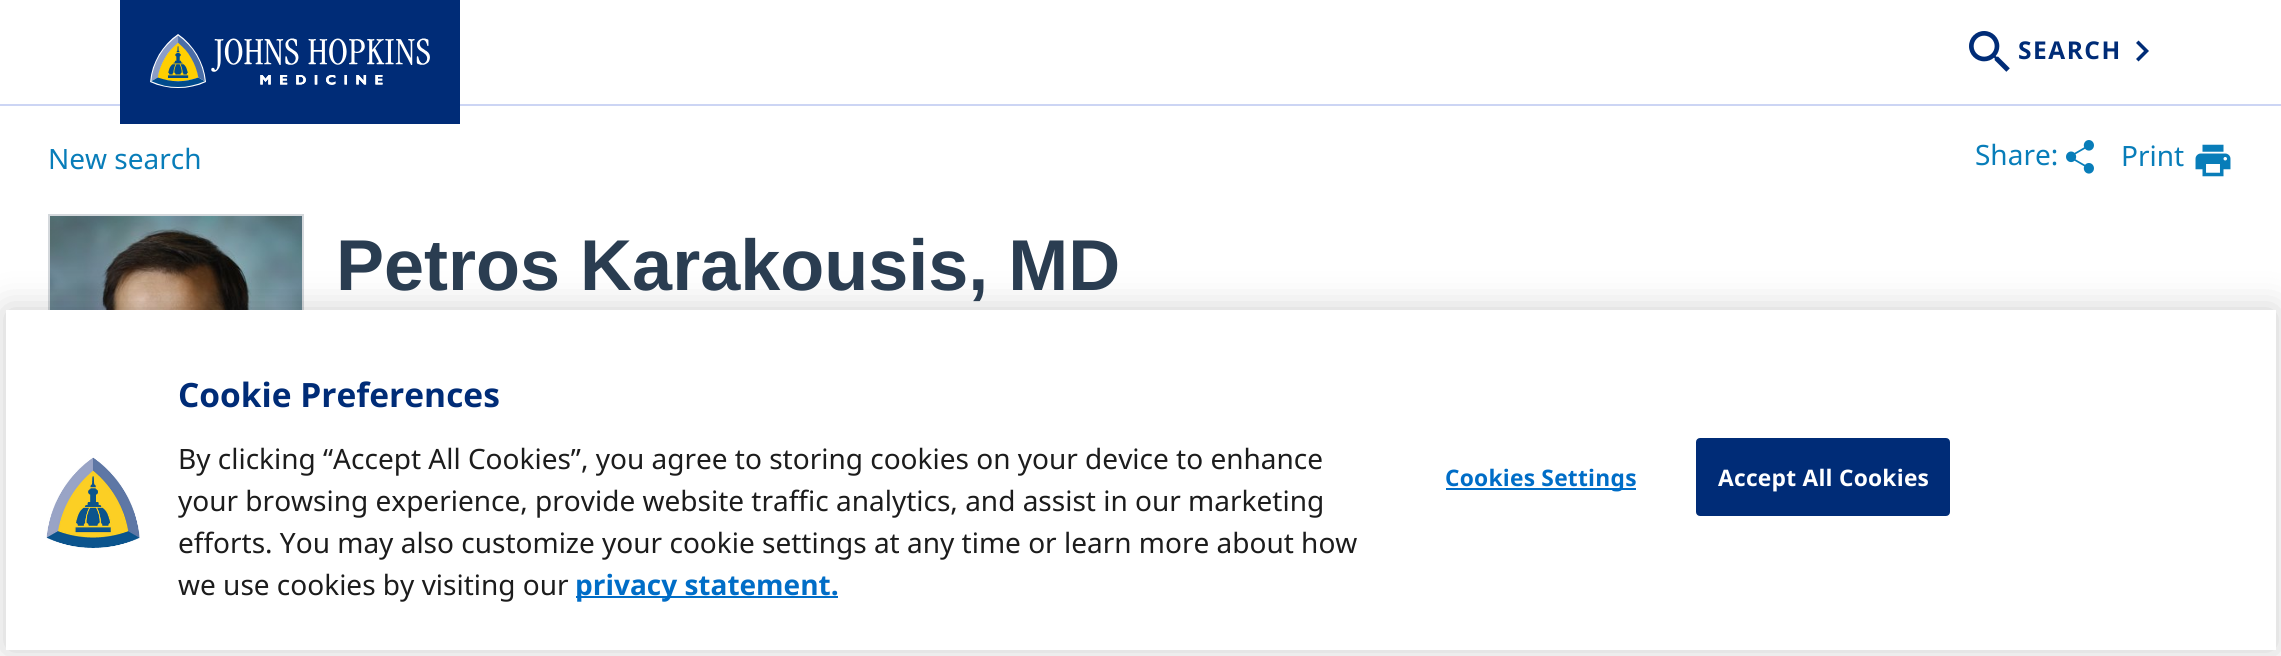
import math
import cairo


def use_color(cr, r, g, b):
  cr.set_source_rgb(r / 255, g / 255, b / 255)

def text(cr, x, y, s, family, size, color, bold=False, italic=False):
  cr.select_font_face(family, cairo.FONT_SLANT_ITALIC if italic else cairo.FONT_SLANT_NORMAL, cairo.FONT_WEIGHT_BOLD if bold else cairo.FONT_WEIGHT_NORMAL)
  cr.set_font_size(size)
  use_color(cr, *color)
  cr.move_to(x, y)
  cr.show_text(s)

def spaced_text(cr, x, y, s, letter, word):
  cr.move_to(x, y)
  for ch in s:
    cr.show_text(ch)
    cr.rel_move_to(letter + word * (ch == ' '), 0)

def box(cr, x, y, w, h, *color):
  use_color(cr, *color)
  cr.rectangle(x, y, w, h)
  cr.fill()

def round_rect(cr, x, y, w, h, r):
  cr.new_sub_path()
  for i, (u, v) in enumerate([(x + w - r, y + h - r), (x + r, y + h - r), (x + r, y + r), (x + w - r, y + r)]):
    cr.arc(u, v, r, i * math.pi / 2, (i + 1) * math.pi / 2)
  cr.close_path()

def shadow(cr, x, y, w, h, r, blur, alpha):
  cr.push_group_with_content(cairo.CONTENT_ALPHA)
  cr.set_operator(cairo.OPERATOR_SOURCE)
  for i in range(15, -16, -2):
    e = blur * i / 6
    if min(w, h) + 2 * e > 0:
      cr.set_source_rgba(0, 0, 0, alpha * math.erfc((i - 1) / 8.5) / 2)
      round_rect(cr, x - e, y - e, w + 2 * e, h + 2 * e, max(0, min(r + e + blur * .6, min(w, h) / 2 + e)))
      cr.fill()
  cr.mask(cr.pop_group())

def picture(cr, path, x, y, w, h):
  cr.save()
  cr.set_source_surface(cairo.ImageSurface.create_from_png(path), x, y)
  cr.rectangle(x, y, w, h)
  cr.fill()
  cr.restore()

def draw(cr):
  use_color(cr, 255, 255, 255)
  cr.paint()
  box(cr, 0, 104, 2281, 2, 204, 213, 244)
  box(cr, 120, 0, 340, 124, 0, 44, 119)
  picture(cr, "img_01.png", 150, 34, 280, 54)
  picture(cr, "img_02.png", 1969, 31, 41, 41)
  cr.new_path()
  cr.move_to(2144, 51)
  cr.line_to(2136, 43)
  cr.line_to(2138.5, 40.5)
  cr.line_to(2149, 51)
  cr.line_to(2138.5, 61.5)
  cr.line_to(2136, 59)
  cr.close_path()
  cr.fill()
  picture(cr, "img_03.png", 2066, 140, 28, 34)
  picture(cr, "img_04.png", 2195, 144, 36, 33)
  box(cr, 48, 214, 256, 96, 212, 216, 220)
  picture(cr, "img_05.png", 50, 216, 252, 94)
  use_color(cr, 0, 0, 0)
  shadow(cr, 6, 310, 2270, 340, 0, 18, 0.2)
  box(cr, 6, 310, 2270, 340, 255, 255, 255)
  picture(cr, "img_06.png", 46, 457, 94, 92)
  box(cr, 576, 596, 262, 2, 0, 109, 199)
  box(cr, 1446, 488, 190, 2, 0, 109, 199)
  use_color(cr, 0, 44, 119)
  round_rect(cr, 1697, 439, 252, 76, 3)
  cr.fill_preserve()
  cr.stroke()
  cr.select_font_face("Noto Sans", cairo.FONT_SLANT_NORMAL, cairo.FONT_WEIGHT_BOLD)
  cr.set_font_size(24.5)
  spaced_text(cr, 2018, 59, "SEARCH", 1.5, 0)
  text(cr, 48, 169, "New search", "Noto Sans", 28, (8, 125, 185))
  text(cr, 1975, 165, "Share:", "Noto Sans", 28, (8, 125, 185))
  text(cr, 2121, 166, "Print", "Noto Sans", 28, (8, 125, 185))
  text(cr, 336, 290, "Petros Karakousis, MD", "Liberation Sans", 72, (42, 61, 81), bold=True)
  text(cr, 178, 407, "Cookie Preferences", "Noto Sans", 33.5, (0, 44, 119), bold=True)
  text(cr, 178, 469, "By clicking “Accept All Cookies”, you agree to storing cookies on your device to enhance", "Noto Sans", 28, (28, 28, 28))
  text(cr, 178, 511, "your browsing experience, provide website traffic analytics, and assist in our marketing", "Noto Sans", 28, (28, 28, 28))
  text(cr, 178, 553, "efforts. You may also customize your cookie settings at any time or learn more about how", "Noto Sans", 28, (28, 28, 28))
  text(cr, 178, 595, "we use cookies by visiting our", "Noto Sans", 28, (28, 28, 28))
  text(cr, 575, 595, "privacy statement.", "Noto Sans", 28, (0, 109, 199), bold=True)
  cr.set_font_size(22.75)
  spaced_text(cr, 1445, 486, "Cookies Settings", 0.25, 0)
  use_color(cr, 255, 255, 255)
  spaced_text(cr, 1718, 486, "Accept All Cookies", 0.25, 0)


surface = cairo.ImageSurface(cairo.FORMAT_RGB24, 2281, 656)
cr = cairo.Context(surface)
options = cairo.FontOptions()
options.set_hint_metrics(cairo.HINT_METRICS_OFF)
options.set_hint_style(cairo.HINT_STYLE_NONE)
cr.set_font_options(options)
cr.set_miter_limit(4)
draw(cr)
surface.write_to_png("out.png")
